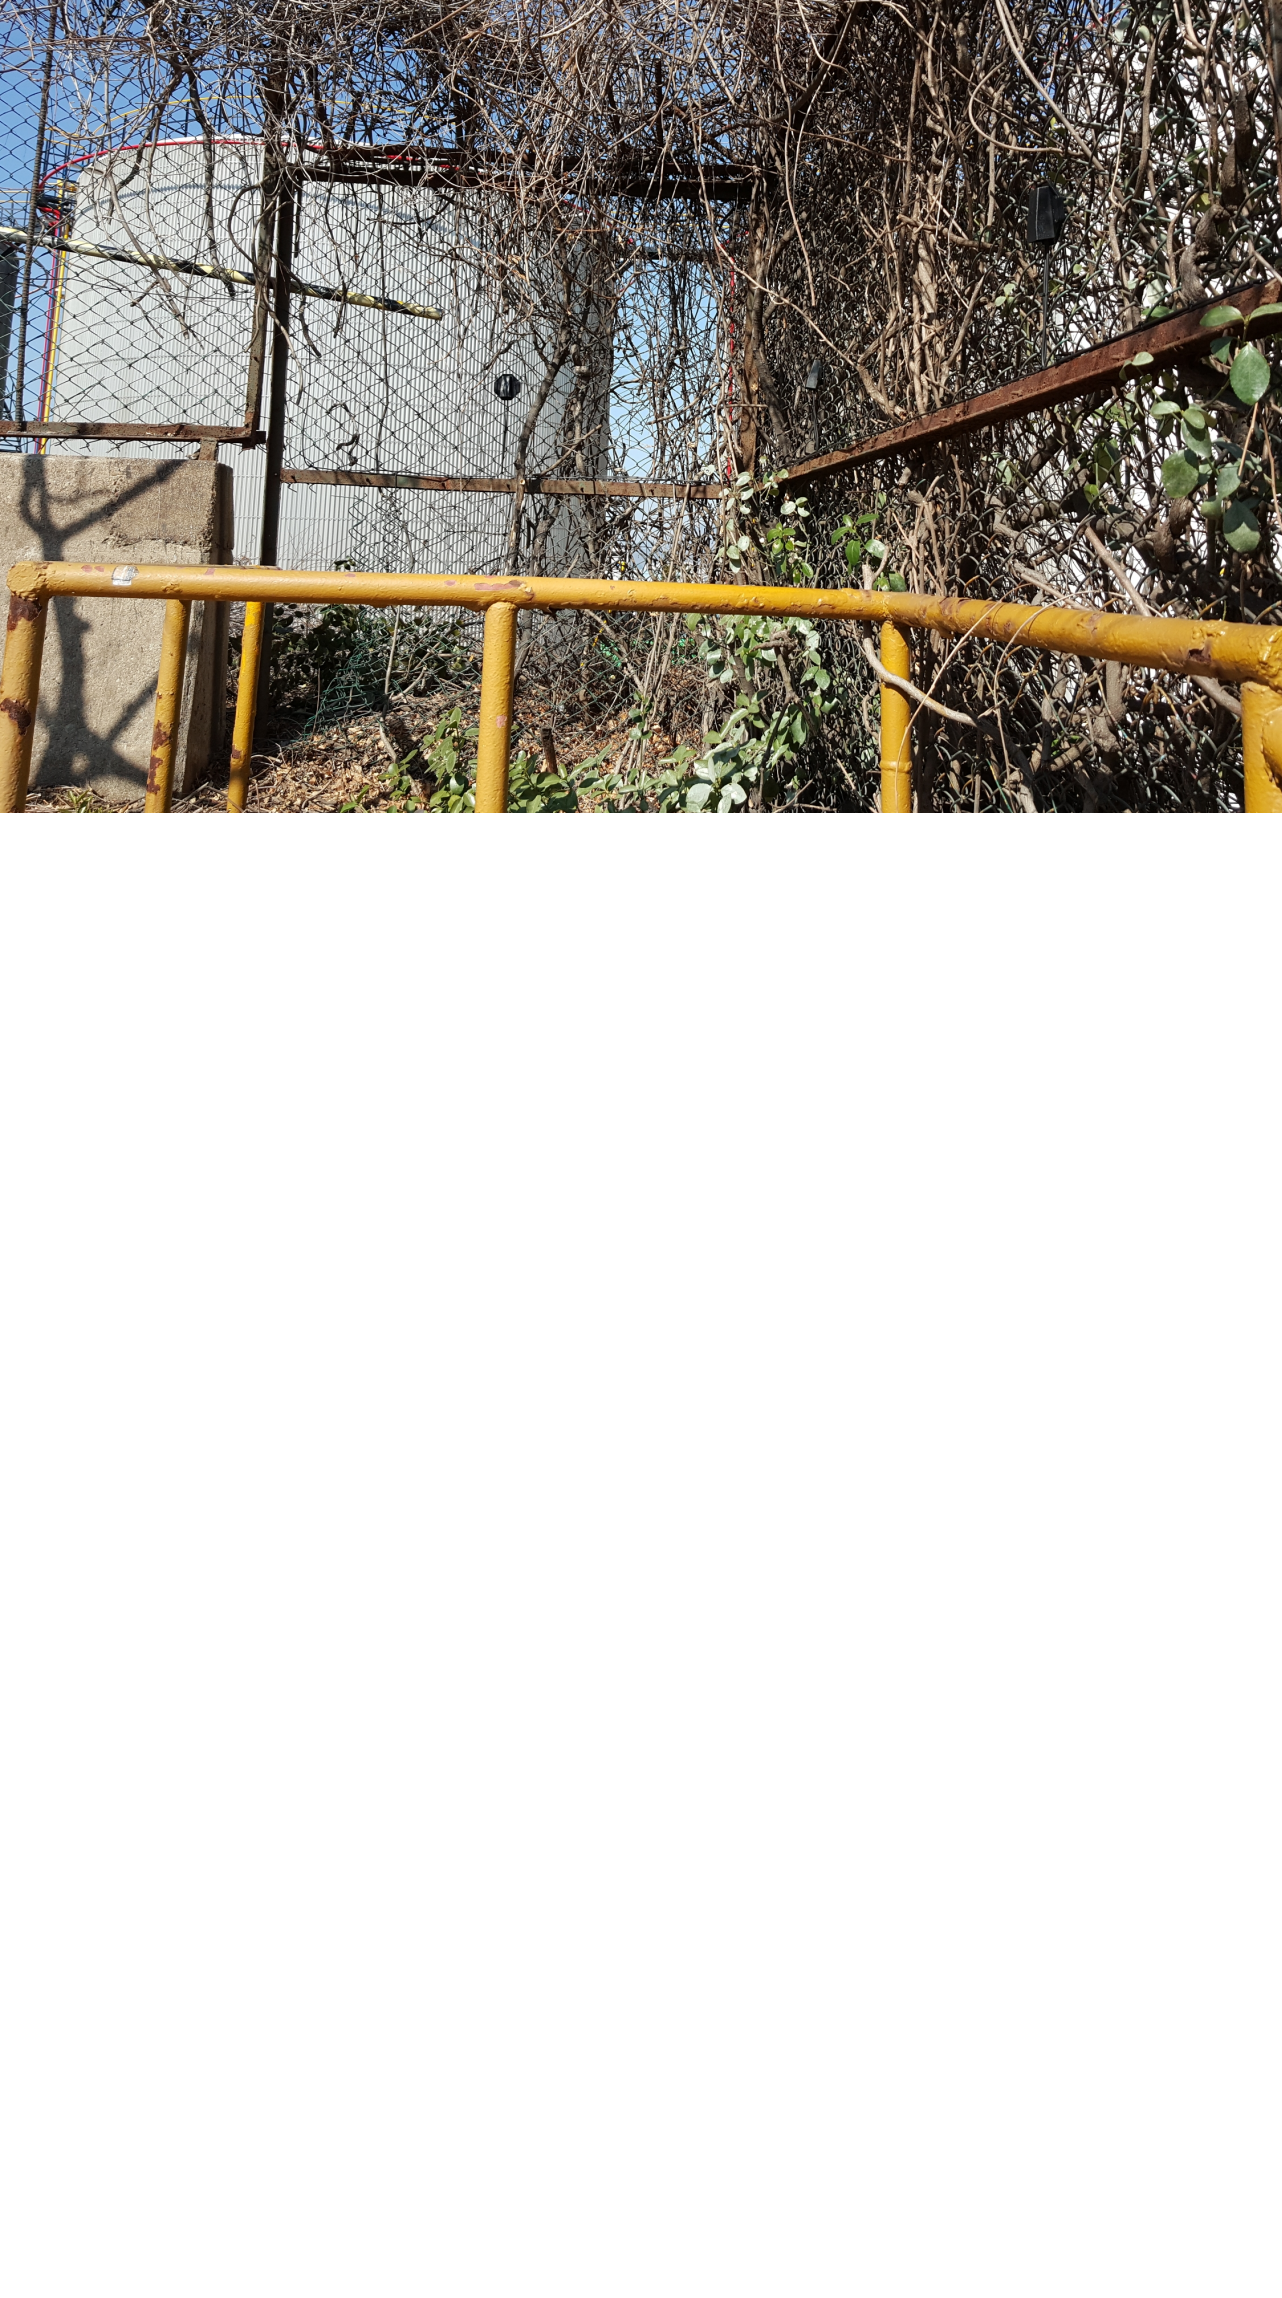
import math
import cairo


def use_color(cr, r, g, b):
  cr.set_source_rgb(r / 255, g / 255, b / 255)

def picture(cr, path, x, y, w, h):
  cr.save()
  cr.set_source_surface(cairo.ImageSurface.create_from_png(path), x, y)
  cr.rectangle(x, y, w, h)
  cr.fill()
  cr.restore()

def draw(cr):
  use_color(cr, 255, 255, 255)
  cr.paint()
  picture(cr, "img_01.png", 0, 0, 1282, 813)


surface = cairo.ImageSurface(cairo.FORMAT_RGB24, 1282, 2298)
cr = cairo.Context(surface)
options = cairo.FontOptions()
options.set_hint_metrics(cairo.HINT_METRICS_OFF)
options.set_hint_style(cairo.HINT_STYLE_NONE)
cr.set_font_options(options)
cr.set_miter_limit(4)
draw(cr)
surface.write_to_png("out.png")
